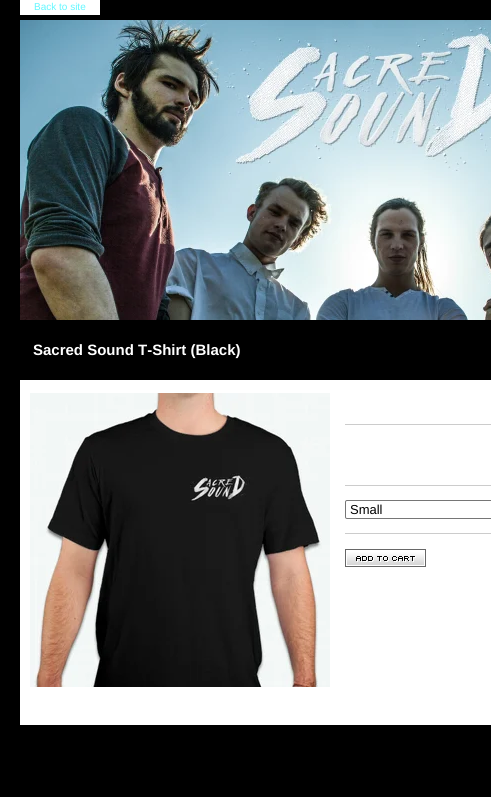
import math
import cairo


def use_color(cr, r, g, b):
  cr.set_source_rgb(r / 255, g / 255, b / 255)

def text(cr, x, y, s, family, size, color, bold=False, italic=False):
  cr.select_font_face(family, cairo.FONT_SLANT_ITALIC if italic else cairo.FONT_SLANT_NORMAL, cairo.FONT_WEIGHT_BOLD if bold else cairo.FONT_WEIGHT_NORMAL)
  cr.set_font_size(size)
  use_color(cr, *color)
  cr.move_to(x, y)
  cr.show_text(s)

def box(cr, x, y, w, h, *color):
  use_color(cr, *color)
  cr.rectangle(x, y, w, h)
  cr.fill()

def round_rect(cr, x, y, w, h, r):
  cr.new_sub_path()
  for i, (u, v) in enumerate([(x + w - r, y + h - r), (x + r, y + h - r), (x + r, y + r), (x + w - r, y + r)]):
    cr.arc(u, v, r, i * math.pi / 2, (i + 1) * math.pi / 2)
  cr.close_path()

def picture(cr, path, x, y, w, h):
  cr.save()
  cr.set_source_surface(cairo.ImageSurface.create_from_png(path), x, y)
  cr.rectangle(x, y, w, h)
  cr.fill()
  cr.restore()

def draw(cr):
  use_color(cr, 0, 0, 0)
  cr.paint()
  box(cr, 20, 0, 80, 15, 255, 255, 255)
  picture(cr, "img_01.png", 20, 20, 471, 300)
  box(cr, 20, 380, 471, 345, 255, 255, 255)
  picture(cr, "img_02.png", 30, 393, 300, 294)
  box(cr, 345, 424, 146, 1, 204, 204, 204)
  box(cr, 345, 485, 146, 1, 204, 204, 204)
  box(cr, 345, 533, 146, 1, 204, 204, 204)
  round_rect(cr, 345.5, 500.5, 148, 18, 1.5)
  use_color(cr, 118, 118, 118)
  cr.set_line_width(1)
  cr.stroke()
  picture(cr, "img_03.png", 345, 549, 81, 18)
  text(cr, 34, 10, "Back to site", "Liberation Sans", 10, (99, 247, 255))
  text(cr, 33, 355, "Sacred Sound T-Shirt (Black)", "Liberation Sans", 15, (255, 255, 255), bold=True)
  text(cr, 350, 514, "Small", "Liberation Sans", 13, (0, 0, 0))


surface = cairo.ImageSurface(cairo.FORMAT_RGB24, 491, 797)
cr = cairo.Context(surface)
options = cairo.FontOptions()
options.set_hint_metrics(cairo.HINT_METRICS_OFF)
options.set_hint_style(cairo.HINT_STYLE_NONE)
cr.set_font_options(options)
cr.set_miter_limit(4)
draw(cr)
surface.write_to_png("out.png")
